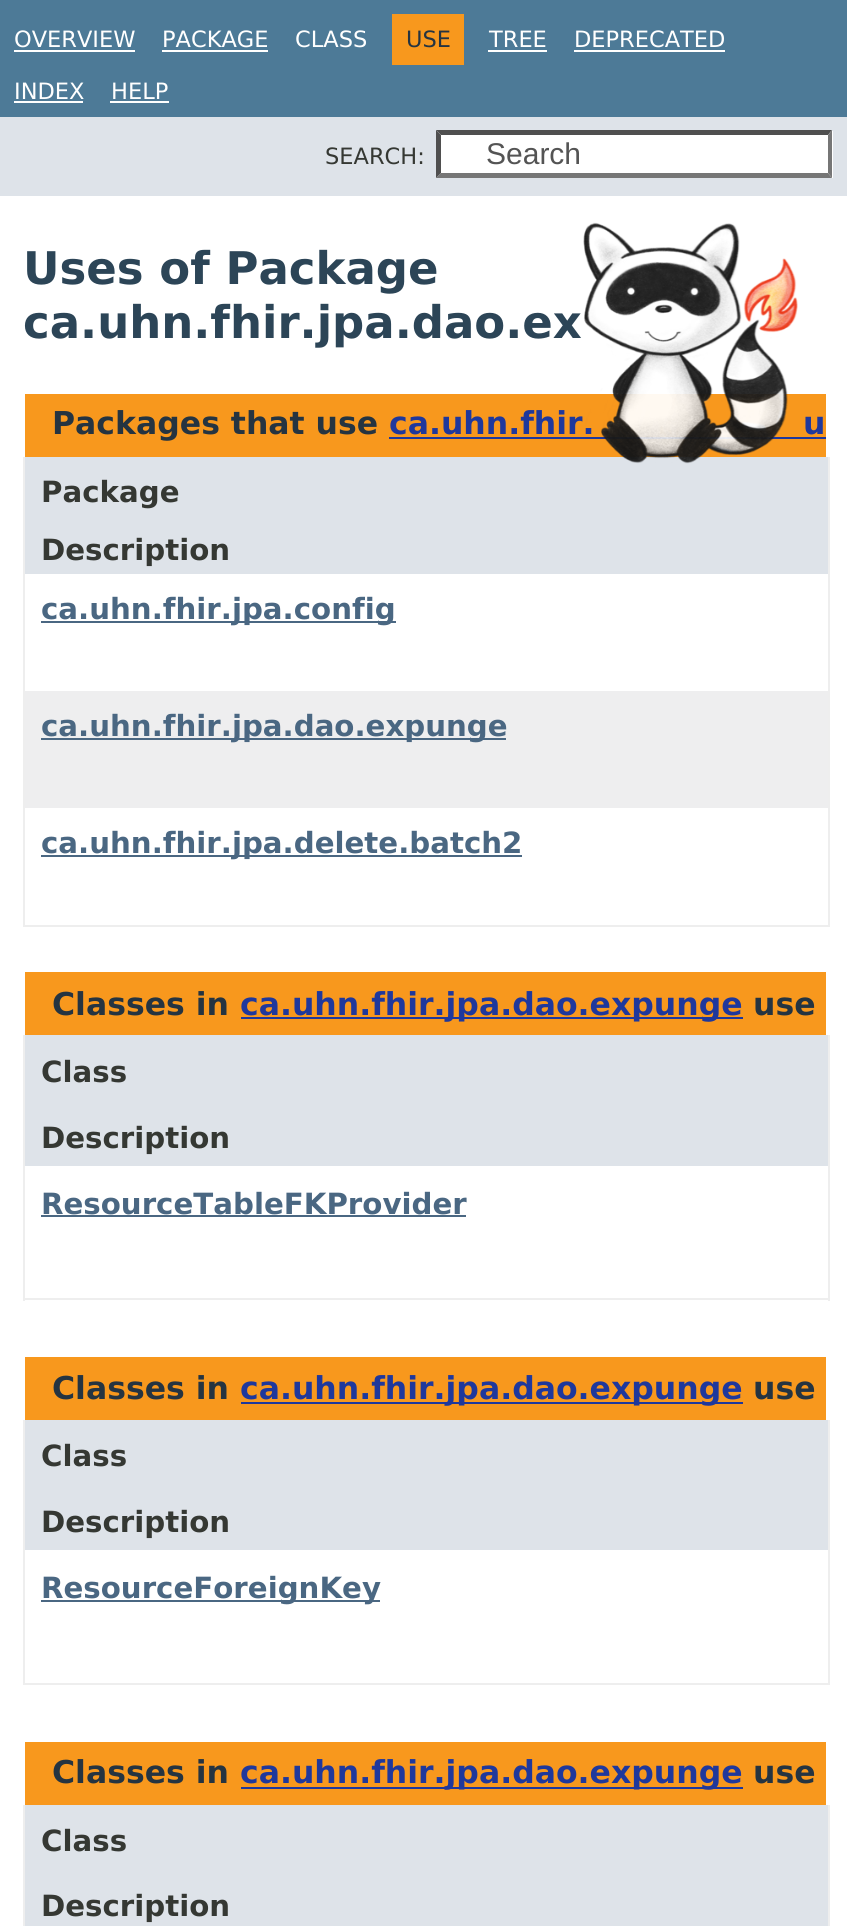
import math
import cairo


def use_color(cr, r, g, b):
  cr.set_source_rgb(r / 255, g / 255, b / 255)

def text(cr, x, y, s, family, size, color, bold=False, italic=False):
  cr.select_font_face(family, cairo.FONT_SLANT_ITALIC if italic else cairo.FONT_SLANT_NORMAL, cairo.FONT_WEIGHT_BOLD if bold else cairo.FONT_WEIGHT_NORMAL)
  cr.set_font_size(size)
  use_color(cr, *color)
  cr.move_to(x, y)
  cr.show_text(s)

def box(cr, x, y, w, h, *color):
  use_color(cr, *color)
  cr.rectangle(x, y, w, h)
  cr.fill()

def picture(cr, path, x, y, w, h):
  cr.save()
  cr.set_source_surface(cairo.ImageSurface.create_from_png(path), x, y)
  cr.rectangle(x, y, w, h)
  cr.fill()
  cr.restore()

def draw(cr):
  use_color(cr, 255, 255, 255)
  cr.paint()
  box(cr, 0, 0, 847, 117, 77, 122, 151)
  box(cr, 14, 50, 121, 2, 255, 255, 255)
  box(cr, 162, 50, 106, 2, 255, 255, 255)
  box(cr, 392, 14, 72, 51, 248, 152, 29)
  box(cr, 488, 50, 59, 2, 255, 255, 255)
  box(cr, 574, 50, 151, 2, 255, 255, 255)
  box(cr, 14, 101, 69, 2, 255, 255, 255)
  box(cr, 110, 101, 59, 2, 255, 255, 255)
  box(cr, 0, 117, 847, 79, 222, 227, 233)
  box(cr, 437, 131, 396, 47, 255, 255, 255)
  use_color(cr, 79, 79, 79)
  cr.new_path()
  cr.move_to(436, 130)
  cr.line_to(832, 130)
  cr.line_to(828, 135)
  cr.line_to(441, 135)
  cr.close_path()
  cr.fill()
  use_color(cr, 118, 118, 118)
  cr.new_path()
  cr.move_to(832, 130)
  cr.line_to(832, 178)
  cr.line_to(828, 173)
  cr.line_to(828, 135)
  cr.close_path()
  cr.fill()
  cr.new_path()
  cr.move_to(832, 178)
  cr.line_to(436, 178)
  cr.line_to(441, 173)
  cr.line_to(828, 173)
  cr.close_path()
  cr.fill()
  use_color(cr, 79, 79, 79)
  cr.new_path()
  cr.move_to(436, 178)
  cr.line_to(436, 130)
  cr.line_to(441, 135)
  cr.line_to(441, 173)
  cr.close_path()
  cr.fill()
  box(cr, 25, 394, 801, 63, 248, 152, 29)
  box(cr, 389, 437, 437, 2, 31, 56, 156)
  box(cr, 828, 457, 2, 470, 238, 238, 238)
  box(cr, 23, 925, 807, 2, 238, 238, 238)
  box(cr, 23, 457, 2, 470, 238, 238, 238)
  box(cr, 25, 457, 803, 117, 222, 227, 233)
  box(cr, 41, 621, 355, 2, 74, 103, 130)
  box(cr, 25, 691, 803, 117, 238, 238, 239)
  box(cr, 41, 738, 465, 2, 74, 103, 130)
  box(cr, 41, 855, 481, 2, 74, 103, 130)
  box(cr, 25, 972, 801, 63, 248, 152, 29)
  box(cr, 241, 1017, 502, 2, 31, 56, 156)
  box(cr, 828, 1035, 2, 266, 238, 238, 238)
  box(cr, 23, 1298, 807, 2, 238, 238, 238)
  box(cr, 23, 1035, 2, 266, 238, 238, 238)
  box(cr, 25, 1035, 803, 131, 222, 227, 233)
  box(cr, 41, 1215, 425, 2, 74, 103, 130)
  box(cr, 25, 1357, 801, 63, 248, 152, 29)
  box(cr, 241, 1402, 502, 2, 31, 56, 156)
  box(cr, 828, 1420, 2, 265, 238, 238, 238)
  box(cr, 23, 1683, 807, 2, 238, 238, 238)
  box(cr, 23, 1420, 2, 265, 238, 238, 238)
  box(cr, 25, 1420, 803, 130, 222, 227, 233)
  box(cr, 41, 1600, 339, 2, 74, 103, 130)
  box(cr, 25, 1742, 801, 63, 248, 152, 29)
  box(cr, 241, 1787, 502, 2, 31, 56, 156)
  box(cr, 828, 1805, 2, 121, 238, 238, 238)
  box(cr, 23, 1805, 2, 121, 238, 238, 238)
  box(cr, 25, 1805, 803, 121, 222, 227, 233)
  text(cr, 14, 47, "OVERVIEW", "DejaVu Sans", 22.5, (255, 255, 255))
  text(cr, 162, 47, "PACKAGE", "DejaVu Sans", 22.5, (255, 255, 255))
  text(cr, 295, 47, "CLASS", "DejaVu Sans", 22.5, (255, 255, 255))
  text(cr, 406, 47, "USE", "DejaVu Sans", 22.5, (37, 52, 65))
  text(cr, 489, 47, "TREE", "DejaVu Sans", 22.5, (255, 255, 255))
  text(cr, 574, 47, "DEPRECATED", "DejaVu Sans", 22.5, (255, 255, 255))
  text(cr, 14, 99, "INDEX", "DejaVu Sans", 22.5, (255, 255, 255))
  text(cr, 111, 99, "HELP", "DejaVu Sans", 22.5, (255, 255, 255))
  text(cr, 325, 164, "SEARCH:", "DejaVu Sans", 22.5, (53, 56, 51))
  text(cr, 486, 164, "Search", "Liberation Sans", 30, (84, 84, 84))
  text(cr, 23, 284, "Uses of Package", "DejaVu Sans", 45, (44, 69, 87), bold=True)
  text(cr, 23, 338, "ca.uhn.fhir.jpa.dao.ex", "DejaVu Sans", 45, (44, 69, 87), bold=True)
  text(cr, 52, 434, "Packages that use", "DejaVu Sans", 31.5, (37, 52, 65), bold=True)
  text(cr, 389, 434, "ca.uhn.fhir.", "DejaVu Sans", 31.5, (31, 56, 156), bold=True)
  picture(cr, "img_01.png", 583, 222, 215, 242)
  text(cr, 803, 434, "u", "DejaVu Sans", 31.5, (31, 56, 156), bold=True)
  text(cr, 41, 502, "Package", "DejaVu Sans", 29.25, (53, 56, 51), bold=True)
  text(cr, 41, 560, "Description", "DejaVu Sans", 29.25, (53, 56, 51), bold=True)
  text(cr, 41, 619, "ca.uhn.fhir.jpa.config", "DejaVu Sans", 29.25, (74, 103, 130), bold=True)
  text(cr, 41, 736, "ca.uhn.fhir.jpa.dao.expunge", "DejaVu Sans", 29.25, (74, 103, 130), bold=True)
  text(cr, 41, 853, "ca.uhn.fhir.jpa.delete.batch2", "DejaVu Sans", 29.25, (74, 103, 130), bold=True)
  text(cr, 52, 1015, "Classes in", "DejaVu Sans", 31.5, (37, 52, 65), bold=True)
  text(cr, 240, 1015, "ca.uhn.fhir.jpa.dao.expunge", "DejaVu Sans", 31.5, (31, 56, 156), bold=True)
  text(cr, 753, 1015, "use", "DejaVu Sans", 31.5, (37, 52, 65), bold=True)
  text(cr, 41, 1082, "Class", "DejaVu Sans", 29.25, (53, 56, 51), bold=True)
  text(cr, 41, 1148, "Description", "DejaVu Sans", 29.25, (53, 56, 51), bold=True)
  text(cr, 41, 1214, "ResourceTableFKProvider", "DejaVu Sans", 29.25, (74, 103, 130), bold=True)
  text(cr, 52, 1399, "Classes in", "DejaVu Sans", 31.5, (37, 52, 65), bold=True)
  text(cr, 240, 1399, "ca.uhn.fhir.jpa.dao.expunge", "DejaVu Sans", 31.5, (31, 56, 156), bold=True)
  text(cr, 753, 1399, "use", "DejaVu Sans", 31.5, (37, 52, 65), bold=True)
  text(cr, 41, 1466, "Class", "DejaVu Sans", 29.25, (53, 56, 51), bold=True)
  text(cr, 41, 1532, "Description", "DejaVu Sans", 29.25, (53, 56, 51), bold=True)
  text(cr, 41, 1598, "ResourceForeignKey", "DejaVu Sans", 29.25, (74, 103, 130), bold=True)
  text(cr, 52, 1783, "Classes in", "DejaVu Sans", 31.5, (37, 52, 65), bold=True)
  text(cr, 240, 1783, "ca.uhn.fhir.jpa.dao.expunge", "DejaVu Sans", 31.5, (31, 56, 156), bold=True)
  text(cr, 753, 1783, "use", "DejaVu Sans", 31.5, (37, 52, 65), bold=True)
  text(cr, 41, 1851, "Class", "DejaVu Sans", 29.25, (53, 56, 51), bold=True)
  text(cr, 41, 1916, "Description", "DejaVu Sans", 29.25, (53, 56, 51), bold=True)


surface = cairo.ImageSurface(cairo.FORMAT_RGB24, 847, 1926)
cr = cairo.Context(surface)
options = cairo.FontOptions()
options.set_hint_metrics(cairo.HINT_METRICS_OFF)
options.set_hint_style(cairo.HINT_STYLE_NONE)
cr.set_font_options(options)
cr.set_miter_limit(4)
draw(cr)
surface.write_to_png("out.png")
